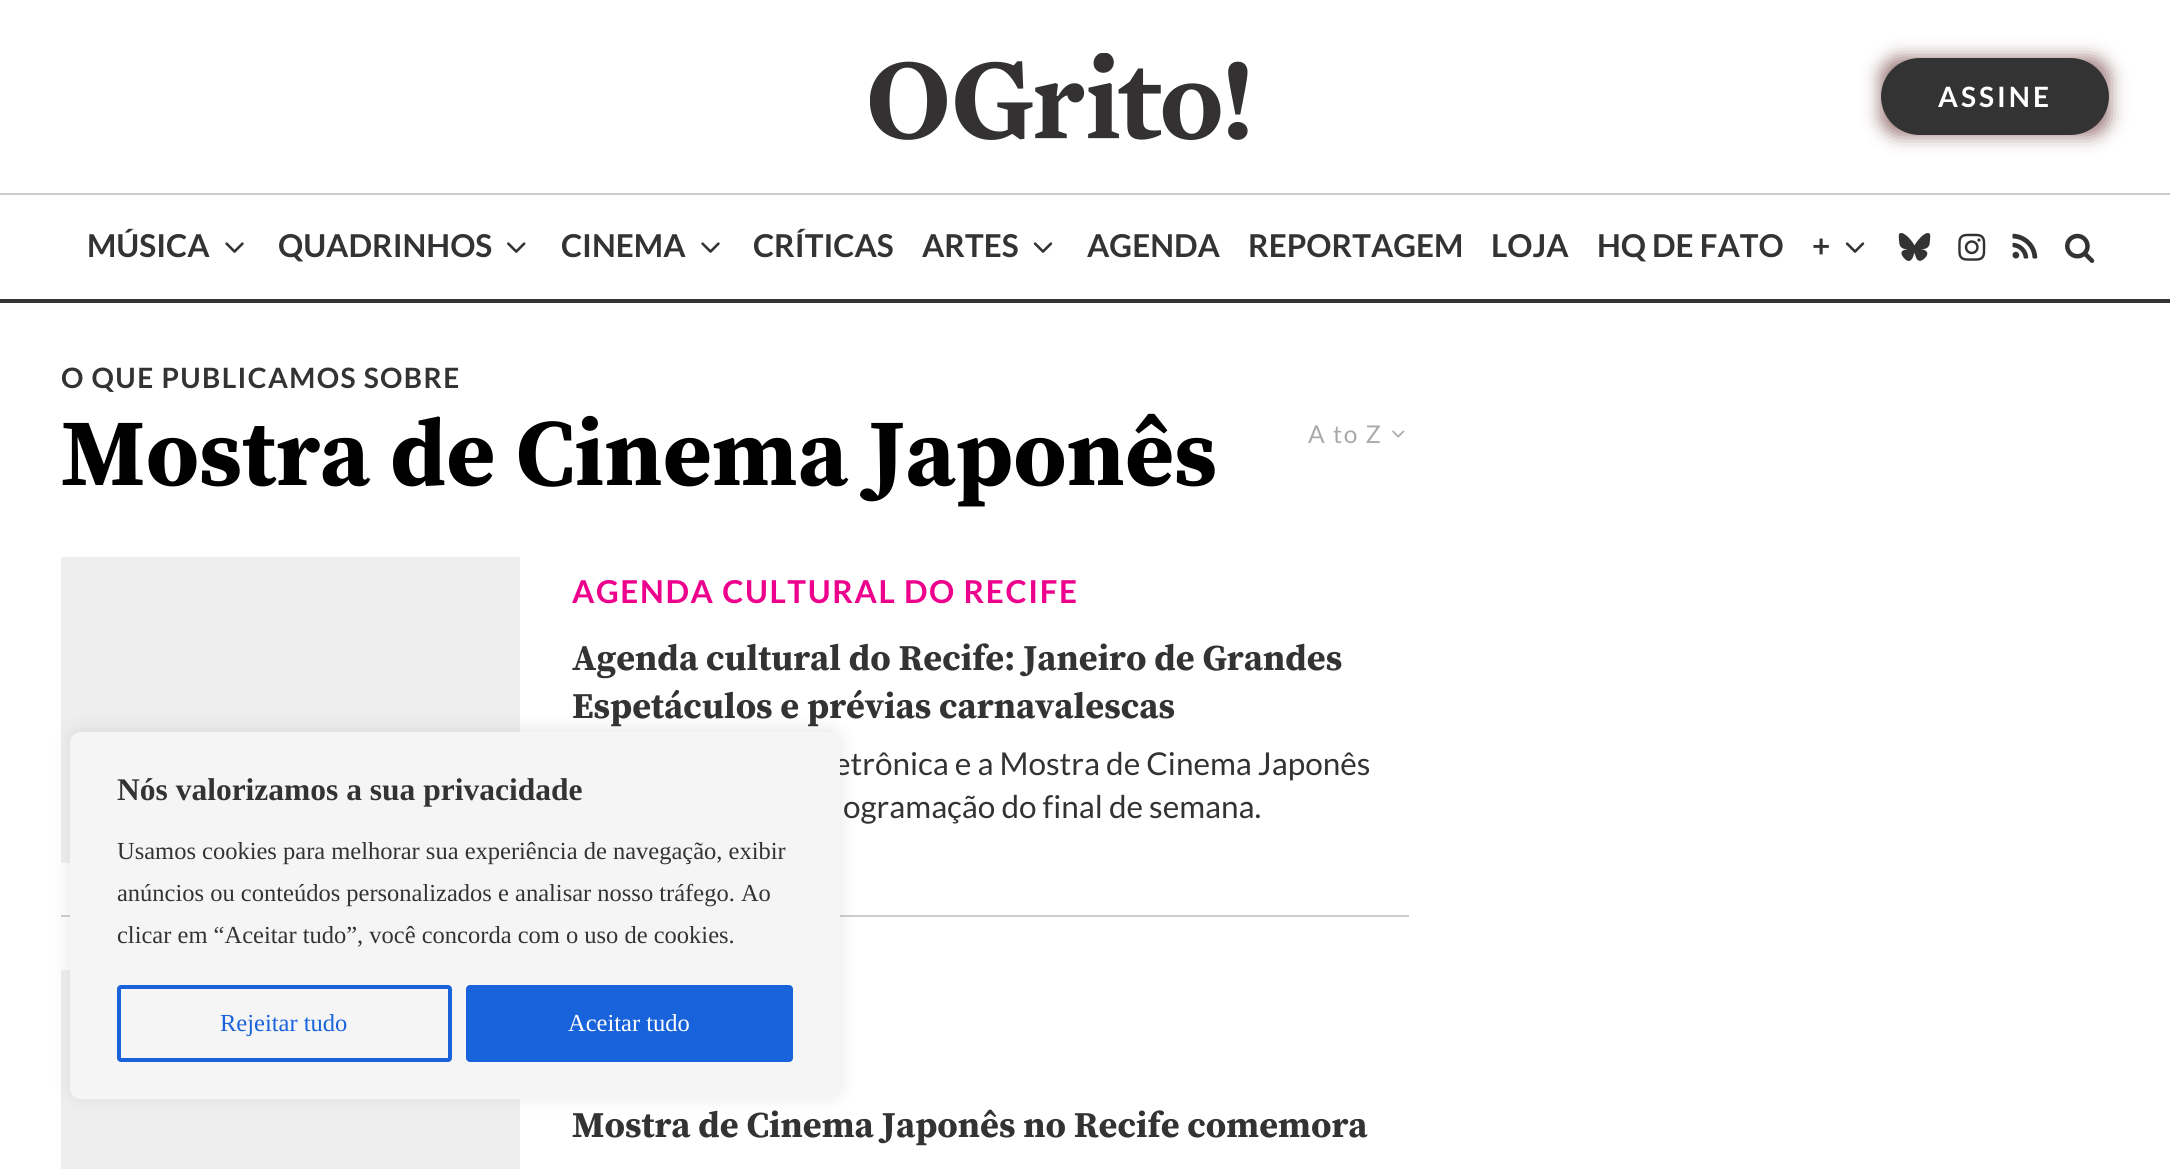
import math
import cairo


def use_color(cr, r, g, b):
  cr.set_source_rgb(r / 255, g / 255, b / 255)

def text(cr, x, y, s, family, size, color, bold=False, italic=False):
  cr.select_font_face(family, cairo.FONT_SLANT_ITALIC if italic else cairo.FONT_SLANT_NORMAL, cairo.FONT_WEIGHT_BOLD if bold else cairo.FONT_WEIGHT_NORMAL)
  cr.set_font_size(size)
  use_color(cr, *color)
  cr.move_to(x, y)
  cr.show_text(s)

def spaced_text(cr, x, y, s, letter, word):
  cr.move_to(x, y)
  for ch in s:
    cr.show_text(ch)
    cr.rel_move_to(letter + word * (ch == ' '), 0)

def box(cr, x, y, w, h, *color):
  use_color(cr, *color)
  cr.rectangle(x, y, w, h)
  cr.fill()

def round_rect(cr, x, y, w, h, r):
  cr.new_sub_path()
  for i, (u, v) in enumerate([(x + w - r, y + h - r), (x + r, y + h - r), (x + r, y + r), (x + w - r, y + r)]):
    cr.arc(u, v, r, i * math.pi / 2, (i + 1) * math.pi / 2)
  cr.close_path()

def shadow(cr, x, y, w, h, r, blur, alpha):
  cr.push_group_with_content(cairo.CONTENT_ALPHA)
  cr.set_operator(cairo.OPERATOR_SOURCE)
  for i in range(15, -16, -2):
    e = blur * i / 6
    if min(w, h) + 2 * e > 0:
      cr.set_source_rgba(0, 0, 0, alpha * math.erfc((i - 1) / 8.5) / 2)
      round_rect(cr, x - e, y - e, w + 2 * e, h + 2 * e, max(0, min(r + e + blur * .6, min(w, h) / 2 + e)))
      cr.fill()
  cr.mask(cr.pop_group())

def picture(cr, path, x, y, w, h):
  cr.save()
  cr.set_source_surface(cairo.ImageSurface.create_from_png(path), x, y)
  cr.rectangle(x, y, w, h)
  cr.fill()
  cr.restore()

def draw(cr):
  use_color(cr, 255, 255, 255)
  cr.paint()
  picture(cr, "img_01.png", 870, 53, 378, 87)
  use_color(cr, 152, 115, 115)
  shadow(cr, 1881, 58, 228, 77, 18, 9, 1)
  use_color(cr, 51, 51, 51)
  round_rect(cr, 1881, 58, 228, 77, 38.5)
  cr.fill()
  box(cr, 0, 193, 2170, 2, 204, 204, 204)
  box(cr, 0, 299, 2170, 4, 51, 51, 51)
  picture(cr, "img_02.png", 225, 242, 19, 11)
  picture(cr, "img_03.png", 507, 242, 19, 11)
  picture(cr, "img_02.png", 701, 242, 19, 11)
  picture(cr, "img_04.png", 1033, 242, 20, 11)
  picture(cr, "img_04.png", 1845, 242, 20, 11)
  picture(cr, "img_05.png", 1898, 233, 33, 28)
  picture(cr, "img_06.png", 1958, 233, 28, 28)
  picture(cr, "img_07.png", 2012, 233, 26, 26)
  picture(cr, "img_08.png", 2065, 233, 30, 30)
  picture(cr, "img_09.png", 1392, 430, 13, 8)
  box(cr, 61, 915, 1348, 2, 204, 204, 204)
  box(cr, 61, 557, 459, 306, 238, 238, 238)
  box(cr, 61, 970, 459, 199, 238, 238, 238)
  use_color(cr, 172, 171, 171)
  shadow(cr, 70, 730, 770, 367, 11, 9, 0.3)
  cr.select_font_face("Lato", cairo.FONT_SLANT_NORMAL, cairo.FONT_WEIGHT_BOLD)
  cr.set_font_size(28)
  use_color(cr, 255, 255, 255)
  spaced_text(cr, 1938, 107, "ASSINE", 3, 0)
  text(cr, 87, 257, "MÚSICA", "Lato", 31.5, (51, 51, 51), bold=True)
  text(cr, 278, 257, "QUADRINHOS", "Lato", 31.5, (51, 51, 51), bold=True)
  text(cr, 561, 257, "CINEMA", "Lato", 31.5, (51, 51, 51), bold=True)
  text(cr, 753, 257, "CRÍTICAS", "Lato", 31.5, (51, 51, 51), bold=True)
  text(cr, 922, 257, "ARTES", "Lato", 31.5, (51, 51, 51), bold=True)
  text(cr, 1087, 257, "AGENDA", "Lato", 31.5, (51, 51, 51), bold=True)
  text(cr, 1248, 257, "REPORTAGEM", "Lato", 31.5, (51, 51, 51), bold=True)
  text(cr, 1491, 257, "LOJA", "Lato", 31.5, (51, 51, 51), bold=True)
  text(cr, 1597, 257, "HQ DE FATO", "Lato", 31.5, (51, 51, 51), bold=True)
  text(cr, 1812, 257, "+", "Lato", 31.5, (51, 51, 51), bold=True)
  cr.set_font_size(28)
  spaced_text(cr, 61, 388, "O QUE PUBLICAMOS SOBRE", 1.4, 0)
  text(cr, 61, 485, "Mostra de Cinema Japonês", "Source Serif Pro", 94.5, (0, 0, 0), bold=True)
  cr.select_font_face("Lato")
  cr.set_font_size(24.5)
  use_color(cr, 170, 170, 170)
  spaced_text(cr, 1308, 443, "A to Z", 1.75, 0)
  cr.select_font_face("Lato", cairo.FONT_SLANT_NORMAL, cairo.FONT_WEIGHT_BOLD)
  cr.set_font_size(31.5)
  use_color(cr, 236, 0, 140)
  spaced_text(cr, 572, 603, "AGENDA CULTURAL DO RECIFE", 1.6, 0)
  text(cr, 572, 670, "Agenda cultural do Recife: Janeiro de Grandes", "Source Serif Pro", 36.25, (51, 51, 51), bold=True)
  text(cr, 572, 718, "Espetáculos e prévias carnavalescas", "Source Serif Pro", 36.25, (51, 51, 51), bold=True)
  text(cr, 834, 775, "etrônica e a Mostra de Cinema Japonês", "Lato", 31.5, (51, 51, 51))
  text(cr, 843, 818, "ogramação do final de semana.", "Lato", 31.5, (51, 51, 51))
  text(cr, 572, 1137, "Mostra de Cinema Japonês no Recife comemora", "Source Serif Pro", 36.25, (51, 51, 51), bold=True)
  use_color(cr, 245, 245, 245)
  round_rect(cr, 71, 733, 768, 365, 10)
  cr.fill_preserve()
  cr.stroke()
  text(cr, 117, 800, "Nós valorizamos a sua privacidade", "Liberation Serif", 31.5, (51, 51, 51), bold=True)
  text(cr, 117, 859, "Usamos cookies para melhorar sua experiência de navegação, exibir", "Liberation Serif", 24.5, (51, 51, 51))
  text(cr, 117, 901, "anúncios ou conteúdos personalizados e analisar nosso tráfego. Ao", "Liberation Serif", 24.5, (51, 51, 51))
  text(cr, 117, 943, "clicar em “Aceitar tudo”, você concorda com o uso de cookies.", "Liberation Serif", 24.5, (51, 51, 51))
  round_rect(cr, 119, 987, 331, 73, 2)
  use_color(cr, 24, 99, 220)
  cr.set_line_width(4)
  cr.stroke()
  text(cr, 220, 1031, "Rejeitar tudo", "Liberation Serif", 24.5, (24, 99, 220))
  round_rect(cr, 468, 987, 323, 73, 2)
  cr.fill_preserve()
  cr.stroke()
  text(cr, 568, 1031, "Aceitar tudo", "Liberation Serif", 24.5, (255, 255, 255))


surface = cairo.ImageSurface(cairo.FORMAT_RGB24, 2170, 1169)
cr = cairo.Context(surface)
options = cairo.FontOptions()
options.set_hint_metrics(cairo.HINT_METRICS_OFF)
options.set_hint_style(cairo.HINT_STYLE_NONE)
cr.set_font_options(options)
cr.set_miter_limit(4)
draw(cr)
surface.write_to_png("out.png")
